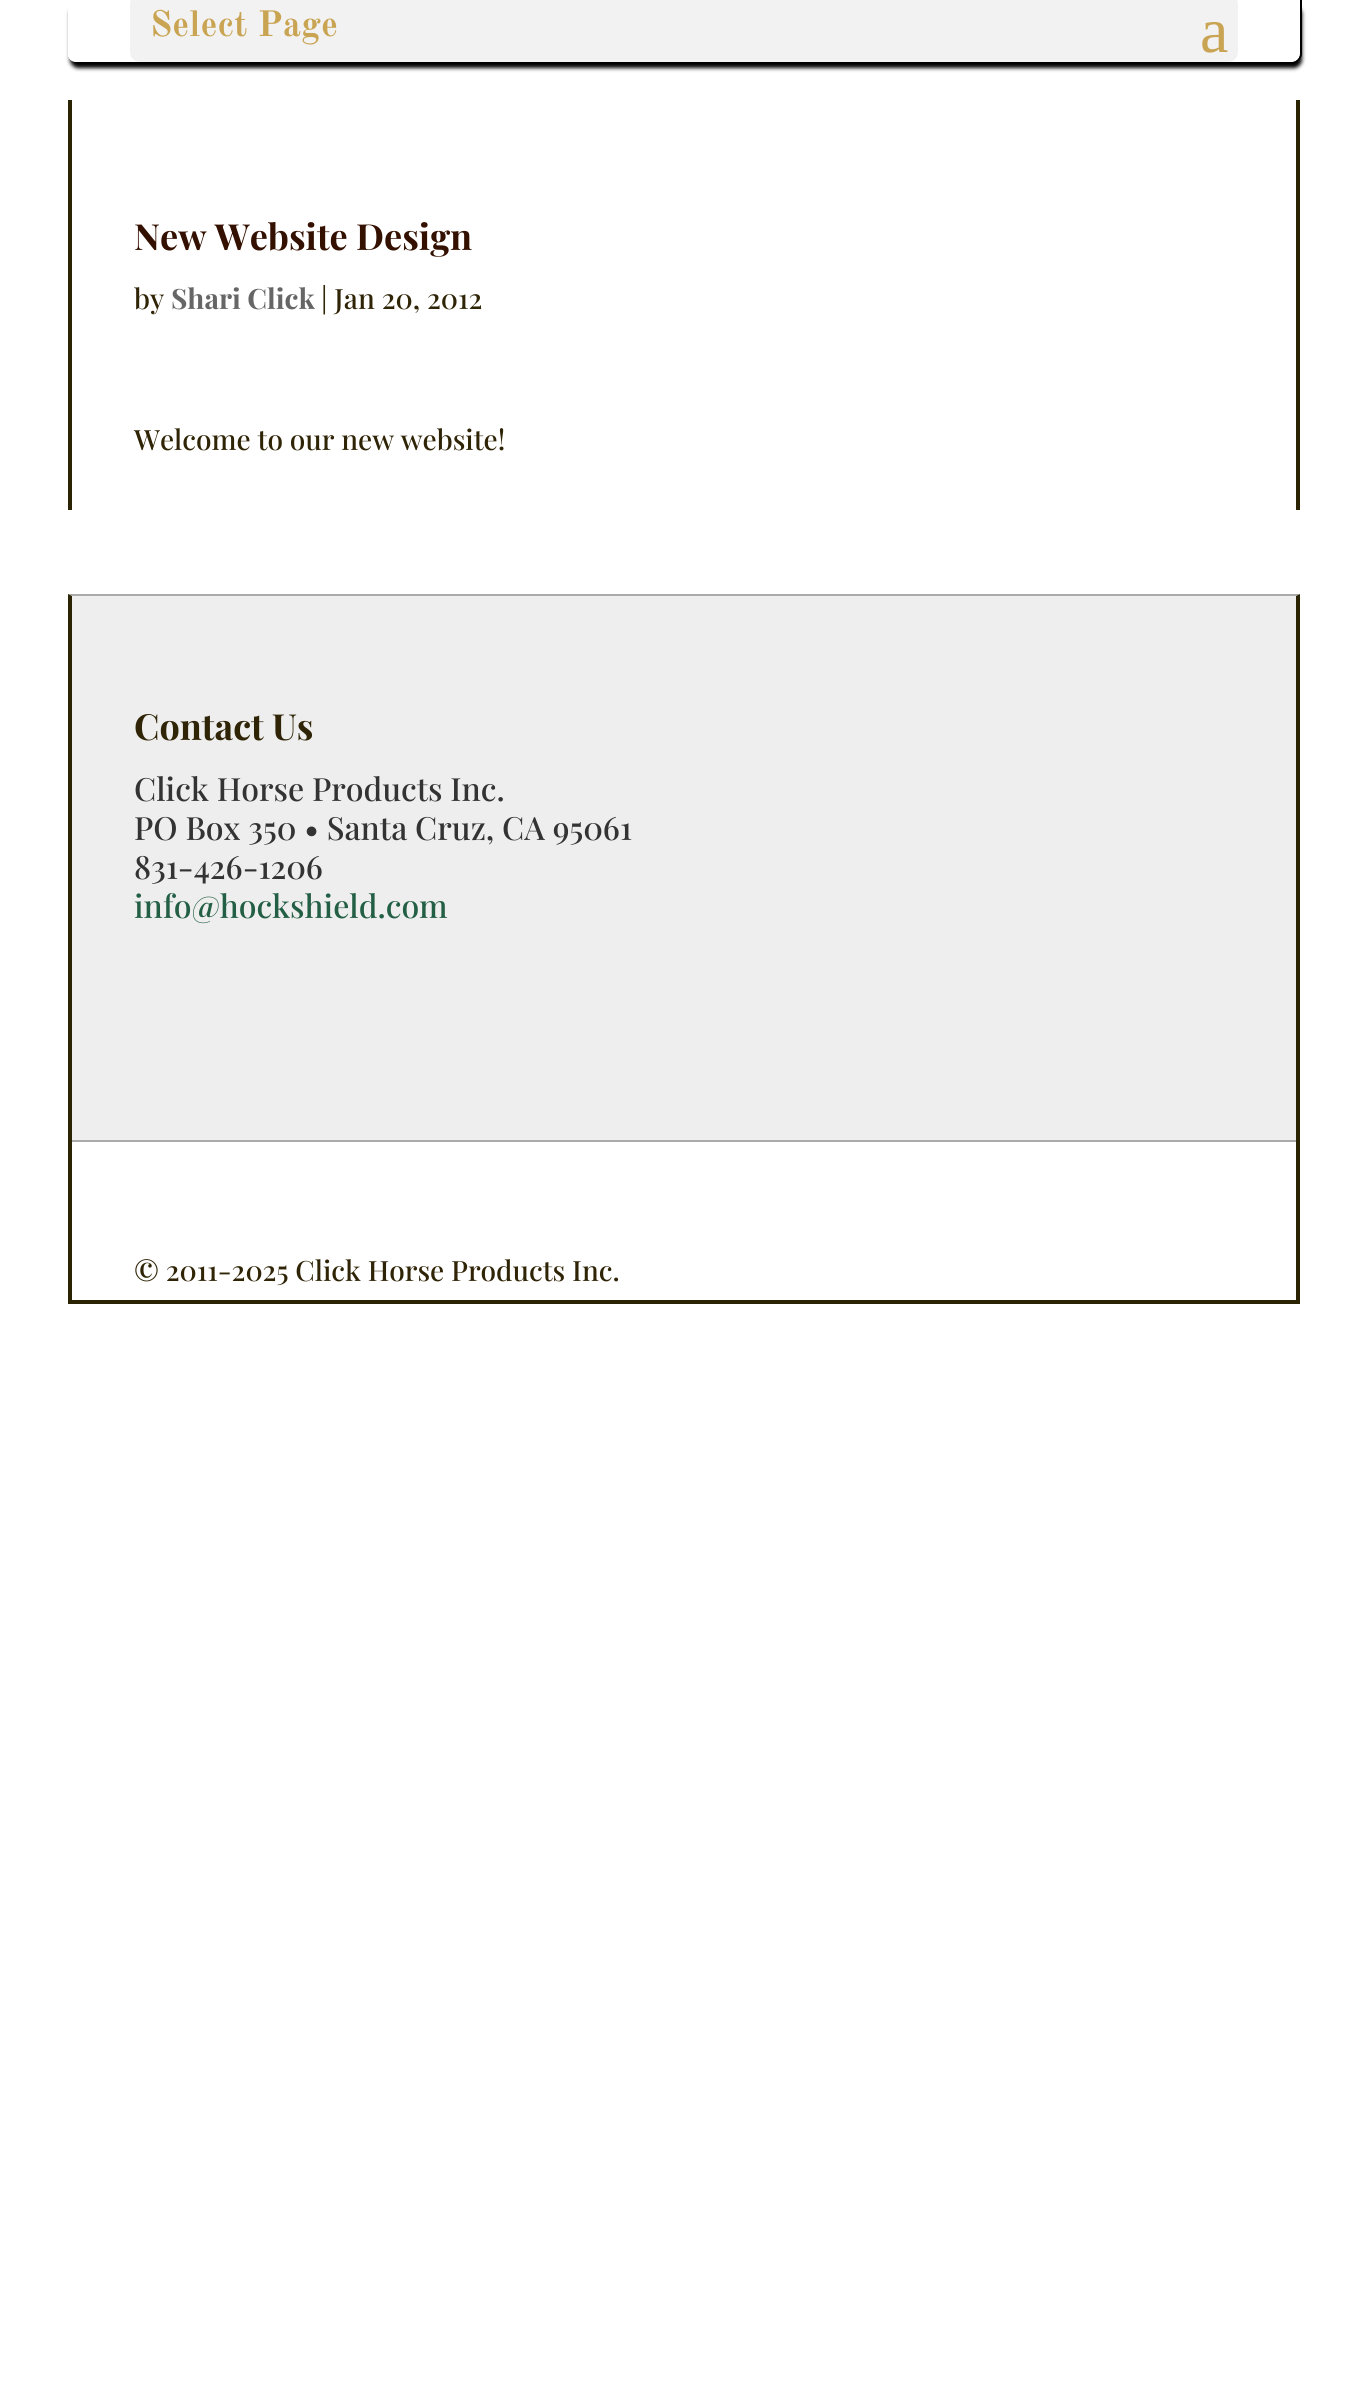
import math
import cairo


def use_color(cr, r, g, b):
  cr.set_source_rgb(r / 255, g / 255, b / 255)

def text(cr, x, y, s, family, size, color, bold=False, italic=False):
  cr.select_font_face(family, cairo.FONT_SLANT_ITALIC if italic else cairo.FONT_SLANT_NORMAL, cairo.FONT_WEIGHT_BOLD if bold else cairo.FONT_WEIGHT_NORMAL)
  cr.set_font_size(size)
  use_color(cr, *color)
  cr.move_to(x, y)
  cr.show_text(s)

def box(cr, x, y, w, h, *color):
  use_color(cr, *color)
  cr.rectangle(x, y, w, h)
  cr.fill()

def round_rect(cr, x, y, w, h, r):
  cr.new_sub_path()
  for i, (u, v) in enumerate([(x + w - r, y + h - r), (x + r, y + h - r), (x + r, y + r), (x + w - r, y + r)]):
    cr.arc(u, v, r, i * math.pi / 2, (i + 1) * math.pi / 2)
  cr.close_path()

def shadow(cr, x, y, w, h, r, blur, alpha):
  cr.push_group_with_content(cairo.CONTENT_ALPHA)
  cr.set_operator(cairo.OPERATOR_SOURCE)
  for i in range(15, -16, -2):
    e = blur * i / 6
    if min(w, h) + 2 * e > 0:
      cr.set_source_rgba(0, 0, 0, alpha * math.erfc((i - 1) / 8.5) / 2)
      round_rect(cr, x - e, y - e, w + 2 * e, h + 2 * e, max(0, min(r + e + blur * .6, min(w, h) / 2 + e)))
      cr.fill()
  cr.mask(cr.pop_group())

def draw(cr):
  use_color(cr, 255, 255, 255)
  cr.paint()
  use_color(cr, 0, 0, 0)
  cr.new_path()
  cr.move_to(1292, 62)
  cr.line_to(1294, 62)
  cr.curve_to(1298, 62, 1302, 58, 1302, 54)
  cr.line_to(1302, 0)
  cr.line_to(1300, 0)
  cr.line_to(1300, 54)
  cr.curve_to(1300, 58, 1296, 62, 1292, 62)
  cr.close_path()
  cr.fill()
  cr.save()
  cr.set_fill_rule(cairo.FILL_RULE_EVEN_ODD)
  cr.new_path()
  cr.move_to(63, 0)
  cr.line_to(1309, 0)
  cr.line_to(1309, 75)
  cr.line_to(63, 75)
  cr.close_path()
  cr.move_to(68, 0)
  cr.line_to(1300, 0)
  cr.line_to(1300, 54)
  cr.curve_to(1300, 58.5, 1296.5, 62, 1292, 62)
  cr.line_to(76, 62)
  cr.curve_to(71.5, 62, 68, 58.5, 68, 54)
  cr.close_path()
  cr.clip()
  use_color(cr, 0, 0, 0)
  shadow(cr, 70, 6, 1232, 62, 8, 2, 1)
  cr.restore()
  use_color(cr, 242, 242, 242)
  round_rect(cr, 130, -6, 1108, 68, 10)
  cr.fill()
  box(cr, 1296, 100, 4, 410, 42, 36, 4)
  box(cr, 68, 100, 4, 410, 42, 36, 4)
  box(cr, 72, 596, 1224, 544, 238, 238, 238)
  use_color(cr, 170, 170, 170)
  cr.new_path()
  cr.move_to(68, 594)
  cr.line_to(1300, 594)
  cr.line_to(1296, 596)
  cr.line_to(72, 596)
  cr.close_path()
  cr.fill()
  use_color(cr, 42, 36, 4)
  cr.new_path()
  cr.move_to(1300, 594)
  cr.line_to(1300, 1304)
  cr.line_to(1296, 1300)
  cr.line_to(1296, 596)
  cr.close_path()
  cr.fill()
  box(cr, 68, 1300, 1232, 4, 42, 36, 4)
  cr.new_path()
  cr.move_to(68, 1304)
  cr.line_to(68, 594)
  cr.line_to(72, 596)
  cr.line_to(72, 1300)
  cr.close_path()
  cr.fill()
  box(cr, 72, 1140, 1224, 2, 170, 170, 170)
  text(cr, 150, 36, "Select Page", "Old Standard TT", 36, (201, 164, 83), bold=True)
  text(cr, 1200, 52, "a", "Liberation Serif", 64, (201, 164, 83))
  text(cr, 134, 250, "New Website Design", "Playfair Display", 36, (52, 16, 0), bold=True)
  text(cr, 134, 309, "by", "Playfair Display Medium", 28, (47, 36, 6))
  text(cr, 171, 309, "Shari Click", "Playfair Display", 28, (102, 102, 102), bold=True)
  text(cr, 321, 309, "| Jan 20, 2012", "Playfair Display Medium", 28, (47, 36, 6))
  text(cr, 134, 450, "Welcome to our new website!", "Playfair Display Medium", 28, (47, 36, 6))
  text(cr, 134, 740, "Contact Us", "Playfair Display", 36, (47, 36, 6), bold=True)
  text(cr, 134, 801, "Click Horse Products Inc.", "Playfair Display Medium", 32, (51, 51, 51))
  text(cr, 134, 840, "PO Box 350 • Santa Cruz, CA 95061", "Playfair Display Medium", 32, (51, 51, 51))
  text(cr, 134, 879, "831-426-1206", "Playfair Display Medium", 32, (51, 51, 51))
  text(cr, 134, 918, "info@hockshield.com", "Playfair Display Medium", 32, (35, 95, 69))
  text(cr, 134, 1281, "© 2011-2025 Click Horse Products Inc.", "Playfair Display Medium", 28, (47, 36, 6))


surface = cairo.ImageSurface(cairo.FORMAT_RGB24, 1368, 2396)
cr = cairo.Context(surface)
options = cairo.FontOptions()
options.set_hint_metrics(cairo.HINT_METRICS_OFF)
options.set_hint_style(cairo.HINT_STYLE_NONE)
cr.set_font_options(options)
cr.set_miter_limit(4)
draw(cr)
surface.write_to_png("out.png")
